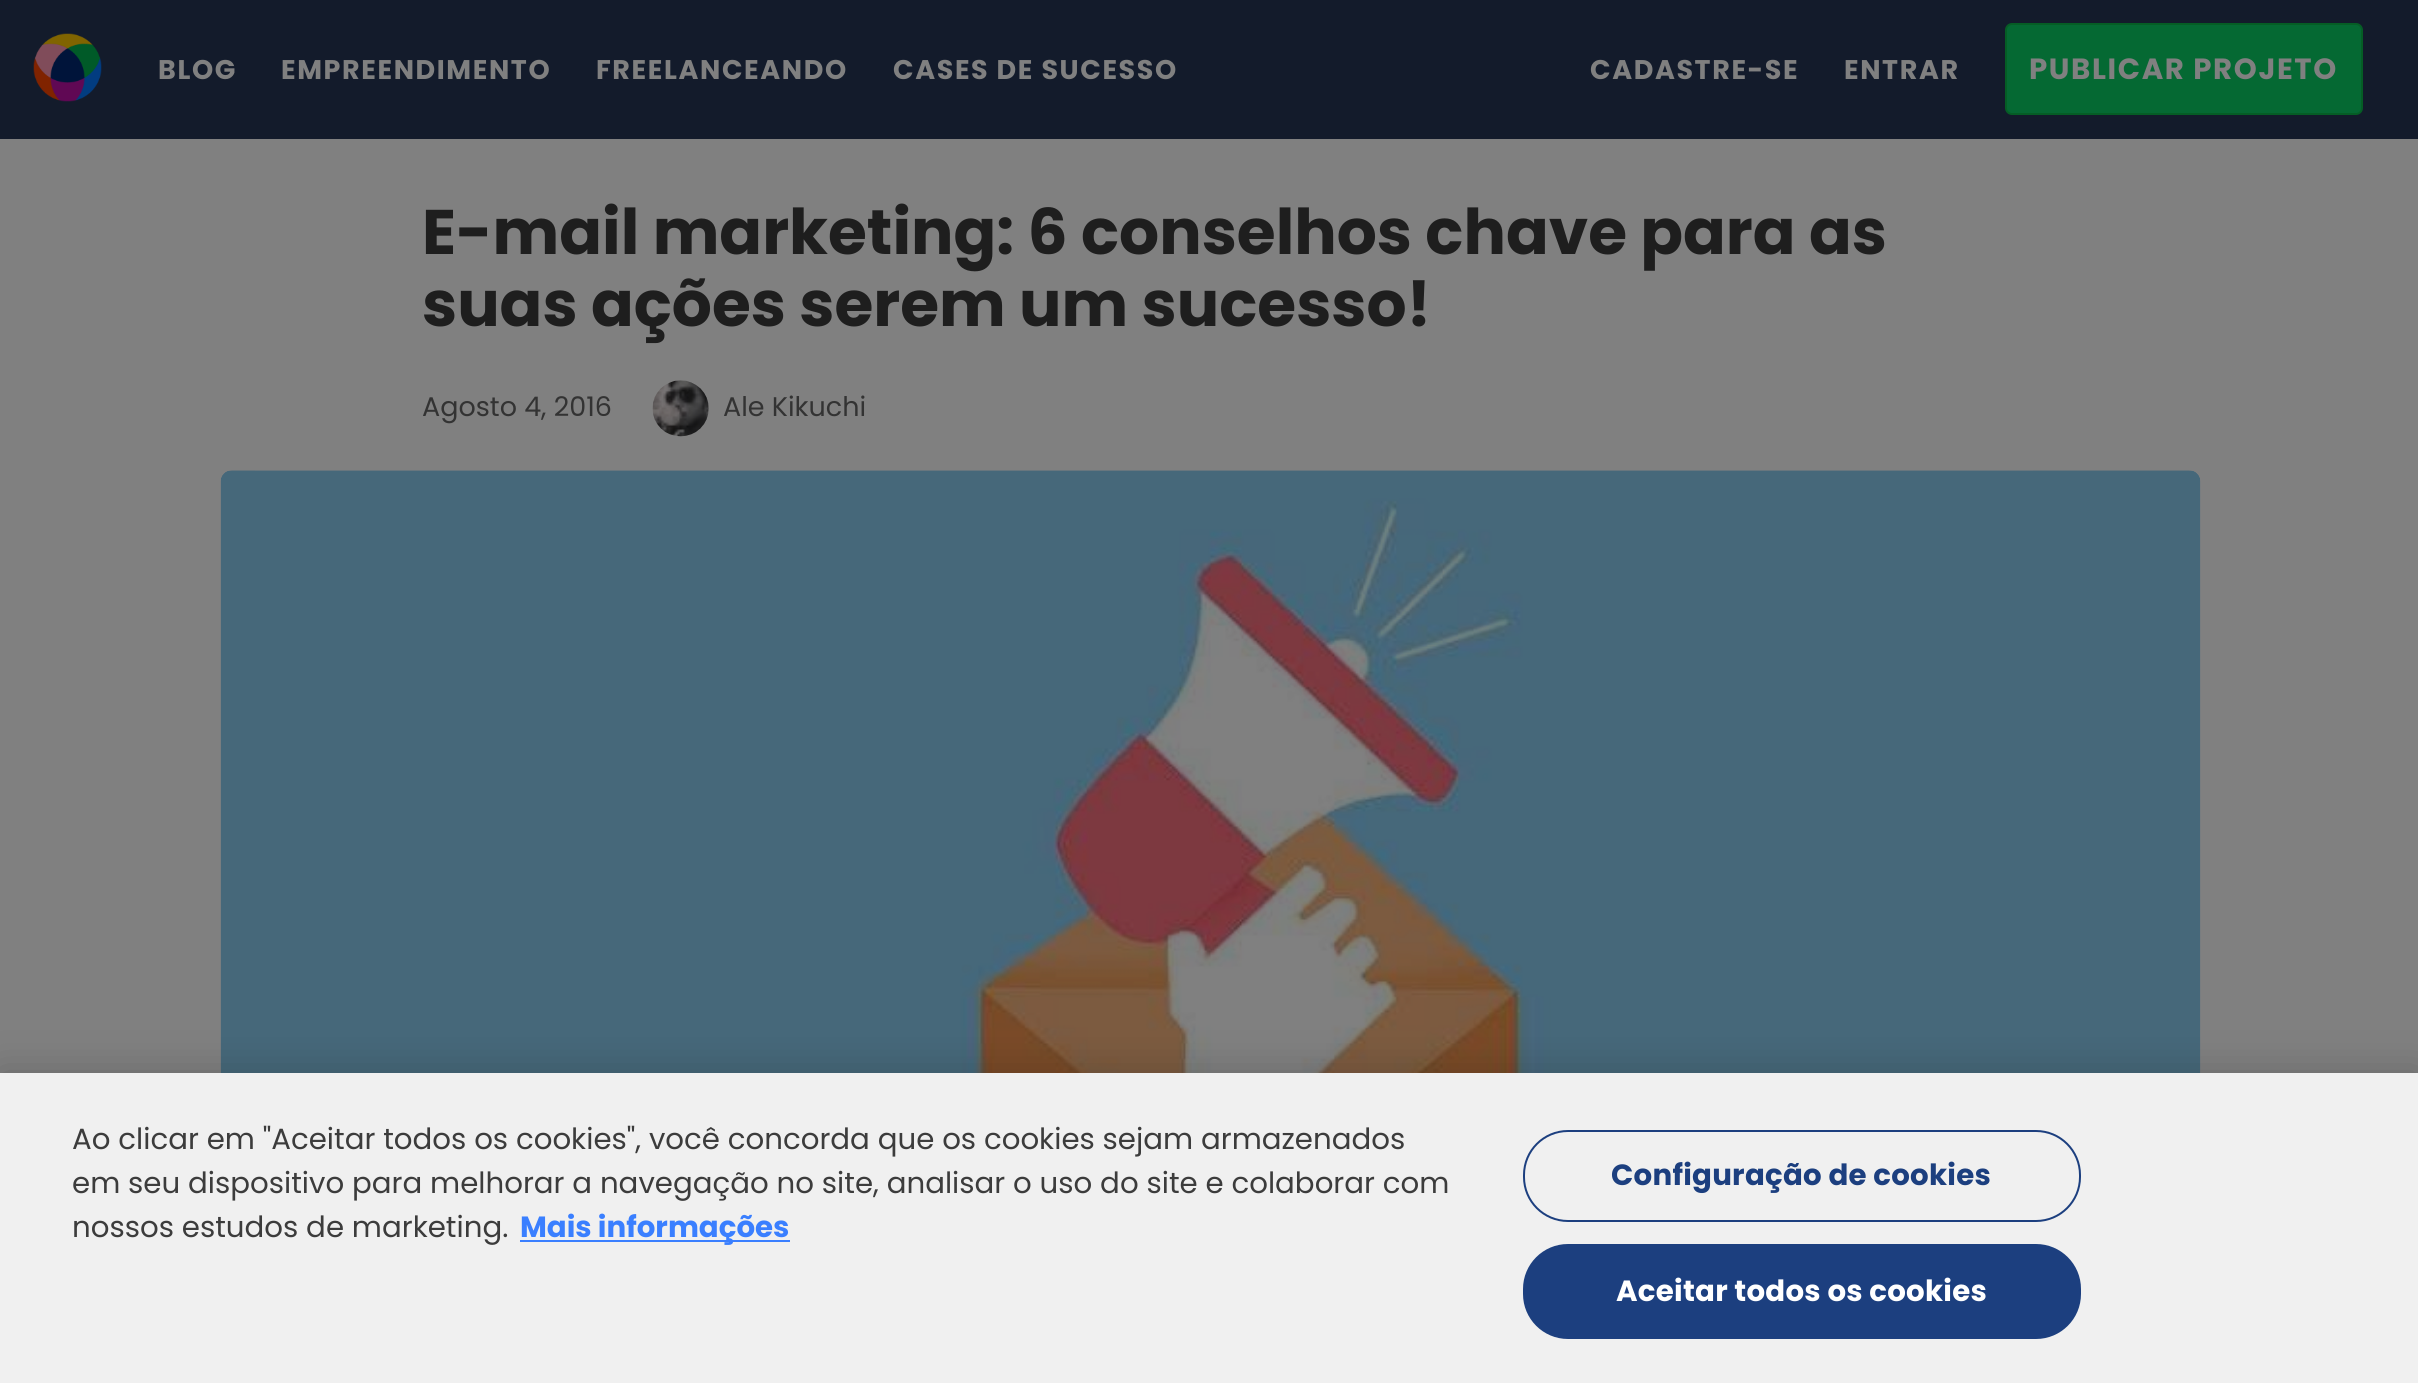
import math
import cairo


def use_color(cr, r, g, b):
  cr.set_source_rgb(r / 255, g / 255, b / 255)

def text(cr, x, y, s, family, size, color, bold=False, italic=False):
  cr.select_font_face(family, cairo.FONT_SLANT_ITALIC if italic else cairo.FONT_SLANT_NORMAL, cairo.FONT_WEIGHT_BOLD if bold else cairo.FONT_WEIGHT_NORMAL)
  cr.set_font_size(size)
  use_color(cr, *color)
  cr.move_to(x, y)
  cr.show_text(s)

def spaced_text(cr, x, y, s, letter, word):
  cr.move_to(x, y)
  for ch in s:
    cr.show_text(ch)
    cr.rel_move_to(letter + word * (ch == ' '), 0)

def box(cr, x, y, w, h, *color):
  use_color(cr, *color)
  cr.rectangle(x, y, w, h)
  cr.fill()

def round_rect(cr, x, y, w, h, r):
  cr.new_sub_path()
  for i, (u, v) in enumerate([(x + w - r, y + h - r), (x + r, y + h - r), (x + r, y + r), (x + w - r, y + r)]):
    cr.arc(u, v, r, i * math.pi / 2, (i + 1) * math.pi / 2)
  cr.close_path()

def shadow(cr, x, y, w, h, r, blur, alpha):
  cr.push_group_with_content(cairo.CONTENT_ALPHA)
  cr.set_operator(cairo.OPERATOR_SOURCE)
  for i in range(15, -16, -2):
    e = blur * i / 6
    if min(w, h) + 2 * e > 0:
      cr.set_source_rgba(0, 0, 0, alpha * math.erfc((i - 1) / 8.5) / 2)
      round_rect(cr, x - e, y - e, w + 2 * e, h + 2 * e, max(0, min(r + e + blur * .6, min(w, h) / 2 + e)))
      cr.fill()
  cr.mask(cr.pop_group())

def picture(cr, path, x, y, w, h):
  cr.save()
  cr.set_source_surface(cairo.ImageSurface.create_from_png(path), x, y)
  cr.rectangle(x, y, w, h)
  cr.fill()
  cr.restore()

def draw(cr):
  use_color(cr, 128, 128, 128)
  cr.paint()
  box(cr, 0, 0, 2418, 139, 19, 27, 43)
  picture(cr, "img_01.png", 33, 33, 69, 69)
  use_color(cr, 5, 105, 51)
  round_rect(cr, 2006, 24, 356, 90, 6)
  cr.fill_preserve()
  use_color(cr, 5, 93, 37)
  cr.stroke()
  picture(cr, "img_02.png", 652, 380, 57, 57)
  picture(cr, "img_03.png", 220, 470, 1981, 603)
  use_color(cr, 0, 0, 0)
  shadow(cr, 0, 1073, 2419, 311, 0, 20, 0.2)
  box(cr, 0, 1073, 2418, 310, 240, 240, 240)
  box(cr, 520, 1240, 270, 2, 58, 127, 255)
  round_rect(cr, 1524, 1131, 556, 90, 44)
  use_color(cr, 28, 63, 127)
  cr.stroke()
  round_rect(cr, 1524, 1245, 556, 93, 44)
  cr.fill_preserve()
  cr.stroke()
  cr.select_font_face("Poppins", cairo.FONT_SLANT_NORMAL, cairo.FONT_WEIGHT_BOLD)
  cr.set_font_size(27)
  use_color(cr, 128, 128, 128)
  spaced_text(cr, 158, 79, "BLOG", 1.6, 0)
  spaced_text(cr, 281, 79, "EMPREENDIMENTO", 1.6, 0)
  spaced_text(cr, 596, 79, "FREELANCEANDO", 1.6, 0)
  spaced_text(cr, 893, 79, "CASES DE SUCESSO", 1.6, 0)
  spaced_text(cr, 1590, 79, "CADASTRE-SE", 1.6, 0)
  spaced_text(cr, 1844, 79, "ENTRAR", 1.6, 0)
  cr.set_font_size(29.25)
  spaced_text(cr, 2029, 79, "PUBLICAR PROJETO", 1.6, 0)
  text(cr, 422, 254, "E-mail marketing: 6 conselhos chave para as", "Poppins", 63, (30, 30, 30), bold=True)
  text(cr, 422, 326, "suas ações serem um sucesso!", "Poppins", 63, (30, 30, 30), bold=True)
  text(cr, 422, 416, "Agosto 4, 2016", "Poppins", 27, (51, 51, 51))
  text(cr, 723, 416, "Ale Kikuchi", "Poppins", 27, (51, 51, 51))
  text(cr, 72, 1149, "Ao clicar em \"Aceitar todos os cookies\", você concorda que os cookies sejam armazenados", "Poppins", 29.25, (60, 60, 60))
  text(cr, 72, 1193, "em seu dispositivo para melhorar a navegação no site, analisar o uso do site e colaborar com", "Poppins", 29.25, (60, 60, 60))
  text(cr, 72, 1237, "nossos estudos de marketing.", "Poppins", 29.25, (60, 60, 60))
  text(cr, 520, 1237, "Mais informações", "Poppins", 29.25, (58, 127, 255), bold=True)
  use_color(cr, 28, 63, 127)
  spaced_text(cr, 1611, 1185, "Configuração de cookies", 0.25, 0)
  use_color(cr, 255, 255, 255)
  spaced_text(cr, 1616, 1301, "Aceitar todos os cookies", 0.25, 0)


surface = cairo.ImageSurface(cairo.FORMAT_RGB24, 2418, 1383)
cr = cairo.Context(surface)
options = cairo.FontOptions()
options.set_hint_metrics(cairo.HINT_METRICS_OFF)
options.set_hint_style(cairo.HINT_STYLE_NONE)
cr.set_font_options(options)
cr.set_miter_limit(4)
draw(cr)
surface.write_to_png("out.png")
